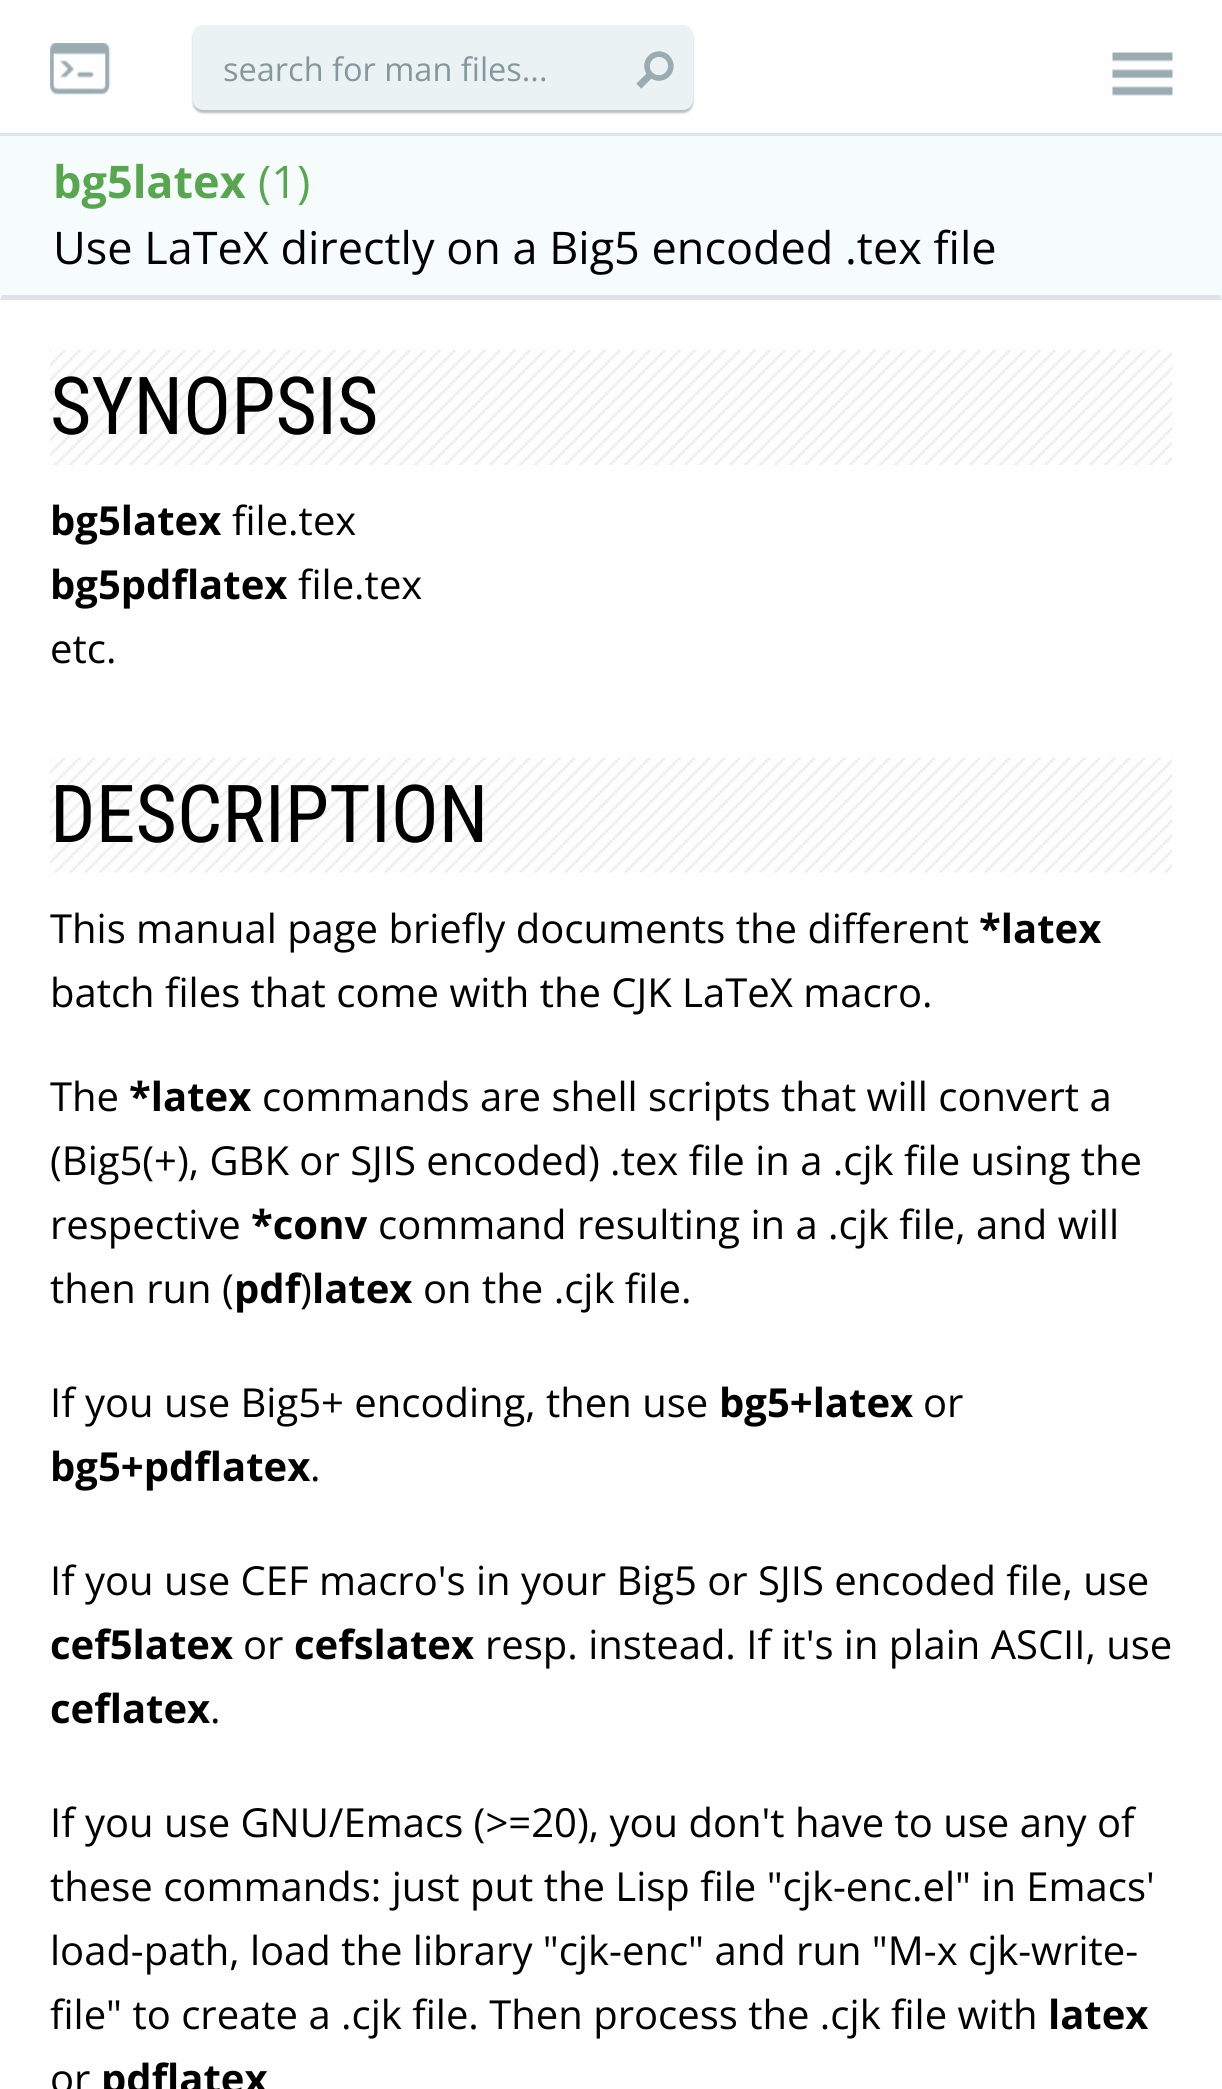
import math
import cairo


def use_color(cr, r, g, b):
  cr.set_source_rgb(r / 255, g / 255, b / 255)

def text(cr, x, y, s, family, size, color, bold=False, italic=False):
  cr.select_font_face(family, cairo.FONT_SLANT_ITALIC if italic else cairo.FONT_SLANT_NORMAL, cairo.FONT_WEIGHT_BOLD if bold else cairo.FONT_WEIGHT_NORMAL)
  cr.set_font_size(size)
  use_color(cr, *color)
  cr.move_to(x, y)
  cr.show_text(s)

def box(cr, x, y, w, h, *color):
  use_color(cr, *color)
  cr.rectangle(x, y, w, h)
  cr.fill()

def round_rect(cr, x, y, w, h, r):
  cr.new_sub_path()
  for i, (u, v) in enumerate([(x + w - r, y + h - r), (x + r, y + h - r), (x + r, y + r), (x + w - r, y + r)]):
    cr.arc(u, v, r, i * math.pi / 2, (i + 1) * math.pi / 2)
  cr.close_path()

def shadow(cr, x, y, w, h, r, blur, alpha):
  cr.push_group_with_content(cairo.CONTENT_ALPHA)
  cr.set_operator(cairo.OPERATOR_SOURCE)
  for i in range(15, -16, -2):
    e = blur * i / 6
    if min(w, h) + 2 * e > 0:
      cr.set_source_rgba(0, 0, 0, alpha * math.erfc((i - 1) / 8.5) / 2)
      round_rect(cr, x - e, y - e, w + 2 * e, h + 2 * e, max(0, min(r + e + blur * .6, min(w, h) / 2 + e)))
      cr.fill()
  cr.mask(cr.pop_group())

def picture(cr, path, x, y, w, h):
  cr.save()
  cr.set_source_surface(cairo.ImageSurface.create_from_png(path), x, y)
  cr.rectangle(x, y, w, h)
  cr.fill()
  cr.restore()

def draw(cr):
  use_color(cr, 254, 254, 254)
  cr.paint()
  box(cr, 0, 133, 1222, 3, 220, 229, 231)
  picture(cr, "img_01.png", 50, 43, 61, 52)
  use_color(cr, 6, 47, 55)
  shadow(cr, 193, 28, 500, 85, 10, 1, 0.3)
  use_color(cr, 234, 242, 244)
  round_rect(cr, 193, 25, 500, 85, 10)
  cr.fill()
  picture(cr, "img_02.png", 636, 51, 38, 38)
  picture(cr, "img_03.png", 1112, 52, 61, 44)
  box(cr, 0, 136, 1222, 164, 246, 251, 252)
  use_color(cr, 223, 227, 233)
  cr.new_path()
  cr.move_to(1222, 300)
  cr.line_to(0, 300)
  cr.line_to(2, 295)
  cr.line_to(1220, 295)
  cr.close_path()
  cr.fill()
  picture(cr, "img_04.png", 50, 350, 1122, 115)
  picture(cr, "img_05.png", 50, 758, 1122, 115)
  text(cr, 223, 81, "search for man files...", "Open Sans", 32.5, (134, 150, 157))
  text(cr, 53, 198, "bg5latex", "Open Sans", 45, (89, 165, 82), bold=True)
  text(cr, 258, 198, "(1)", "Open Sans", 45, (89, 165, 82))
  text(cr, 53, 264, "Use LaTeX directly on a Big5 encoded .tex file", "Open Sans", 45, (0, 0, 0))
  text(cr, 50, 434, "SYNOPSIS", "Roboto Condensed", 80, (0, 0, 0))
  text(cr, 50, 535, "bg5latex", "Open Sans", 40, (0, 0, 0), bold=True)
  text(cr, 232, 535, "file.tex", "Open Sans", 40, (0, 0, 0))
  text(cr, 50, 599, "bg5pdflatex", "Open Sans", 40, (0, 0, 0), bold=True)
  text(cr, 298, 599, "file.tex", "Open Sans", 40, (0, 0, 0))
  text(cr, 50, 663, "etc.", "Open Sans", 40, (0, 0, 0))
  text(cr, 50, 842, "DESCRIPTION", "Roboto Condensed", 80, (0, 0, 0))
  text(cr, 50, 943, "This manual page briefly documents the different", "Open Sans", 40, (0, 0, 0))
  text(cr, 979, 943, "*latex", "Open Sans", 40, (0, 0, 0), bold=True)
  text(cr, 50, 1007, "batch files that come with the CJK LaTeX macro.", "Open Sans", 40, (0, 0, 0))
  text(cr, 50, 1111, "The", "Open Sans", 40, (0, 0, 0))
  text(cr, 129, 1111, "*latex", "Open Sans", 40, (0, 0, 0), bold=True)
  text(cr, 262, 1111, "commands are shell scripts that will convert a", "Open Sans", 40, (0, 0, 0))
  text(cr, 50, 1175, "(Big5(+), GBK or SJIS encoded) .tex file in a .cjk file using the", "Open Sans", 40, (0, 0, 0))
  text(cr, 50, 1239, "respective", "Open Sans", 40, (0, 0, 0))
  text(cr, 251, 1239, "*conv", "Open Sans", 40, (0, 0, 0), bold=True)
  text(cr, 378, 1239, "command resulting in a .cjk file, and will", "Open Sans", 40, (0, 0, 0))
  text(cr, 50, 1303, "then run (", "Open Sans", 40, (0, 0, 0))
  text(cr, 234, 1303, "pdf", "Open Sans", 40, (0, 0, 0), bold=True)
  text(cr, 300, 1303, ")", "Open Sans", 40, (0, 0, 0))
  text(cr, 312, 1303, "latex", "Open Sans", 40, (0, 0, 0), bold=True)
  text(cr, 423, 1303, "on the .cjk file.", "Open Sans", 40, (0, 0, 0))
  text(cr, 50, 1417, "If you use Big5+ encoding, then use", "Open Sans", 40, (0, 0, 0))
  text(cr, 719, 1417, "bg5+latex", "Open Sans", 40, (0, 0, 0), bold=True)
  text(cr, 923, 1417, "or", "Open Sans", 40, (0, 0, 0))
  text(cr, 50, 1481, "bg5+pdflatex", "Open Sans", 40, (0, 0, 0), bold=True)
  text(cr, 310, 1481, ".", "Open Sans", 40, (0, 0, 0))
  text(cr, 50, 1595, "If you use CEF macro's in your Big5 or SJIS encoded file, use", "Open Sans", 40, (0, 0, 0))
  text(cr, 50, 1659, "cef5latex", "Open Sans", 40, (0, 0, 0), bold=True)
  text(cr, 243, 1659, "or", "Open Sans", 40, (0, 0, 0))
  text(cr, 294, 1659, "cefslatex", "Open Sans", 40, (0, 0, 0), bold=True)
  text(cr, 485, 1659, "resp. instead. If it's in plain ASCII, use", "Open Sans", 40, (0, 0, 0))
  text(cr, 50, 1723, "ceflatex", "Open Sans", 40, (0, 0, 0), bold=True)
  text(cr, 210, 1723, ".", "Open Sans", 40, (0, 0, 0))
  text(cr, 50, 1837, "If you use GNU/Emacs (>=20), you don't have to use any of", "Open Sans", 40, (0, 0, 0))
  text(cr, 50, 1901, "these commands: just put the Lisp file \"cjk-enc.el\" in Emacs'", "Open Sans", 40, (0, 0, 0))
  text(cr, 50, 1965, "load-path, load the library \"cjk-enc\" and run \"M-x cjk-write-", "Open Sans", 40, (0, 0, 0))
  text(cr, 50, 2029, "file\" to create a .cjk file. Then process the .cjk file with", "Open Sans", 40, (0, 0, 0))
  text(cr, 1048, 2029, "latex", "Open Sans", 40, (0, 0, 0), bold=True)
  text(cr, 50, 2093, "or", "Open Sans", 40, (0, 0, 0))
  text(cr, 101, 2093, "pdflatex", "Open Sans", 40, (0, 0, 0), bold=True)


surface = cairo.ImageSurface(cairo.FORMAT_RGB24, 1222, 2089)
cr = cairo.Context(surface)
options = cairo.FontOptions()
options.set_hint_metrics(cairo.HINT_METRICS_OFF)
options.set_hint_style(cairo.HINT_STYLE_NONE)
cr.set_font_options(options)
cr.set_miter_limit(4)
draw(cr)
surface.write_to_png("out.png")
